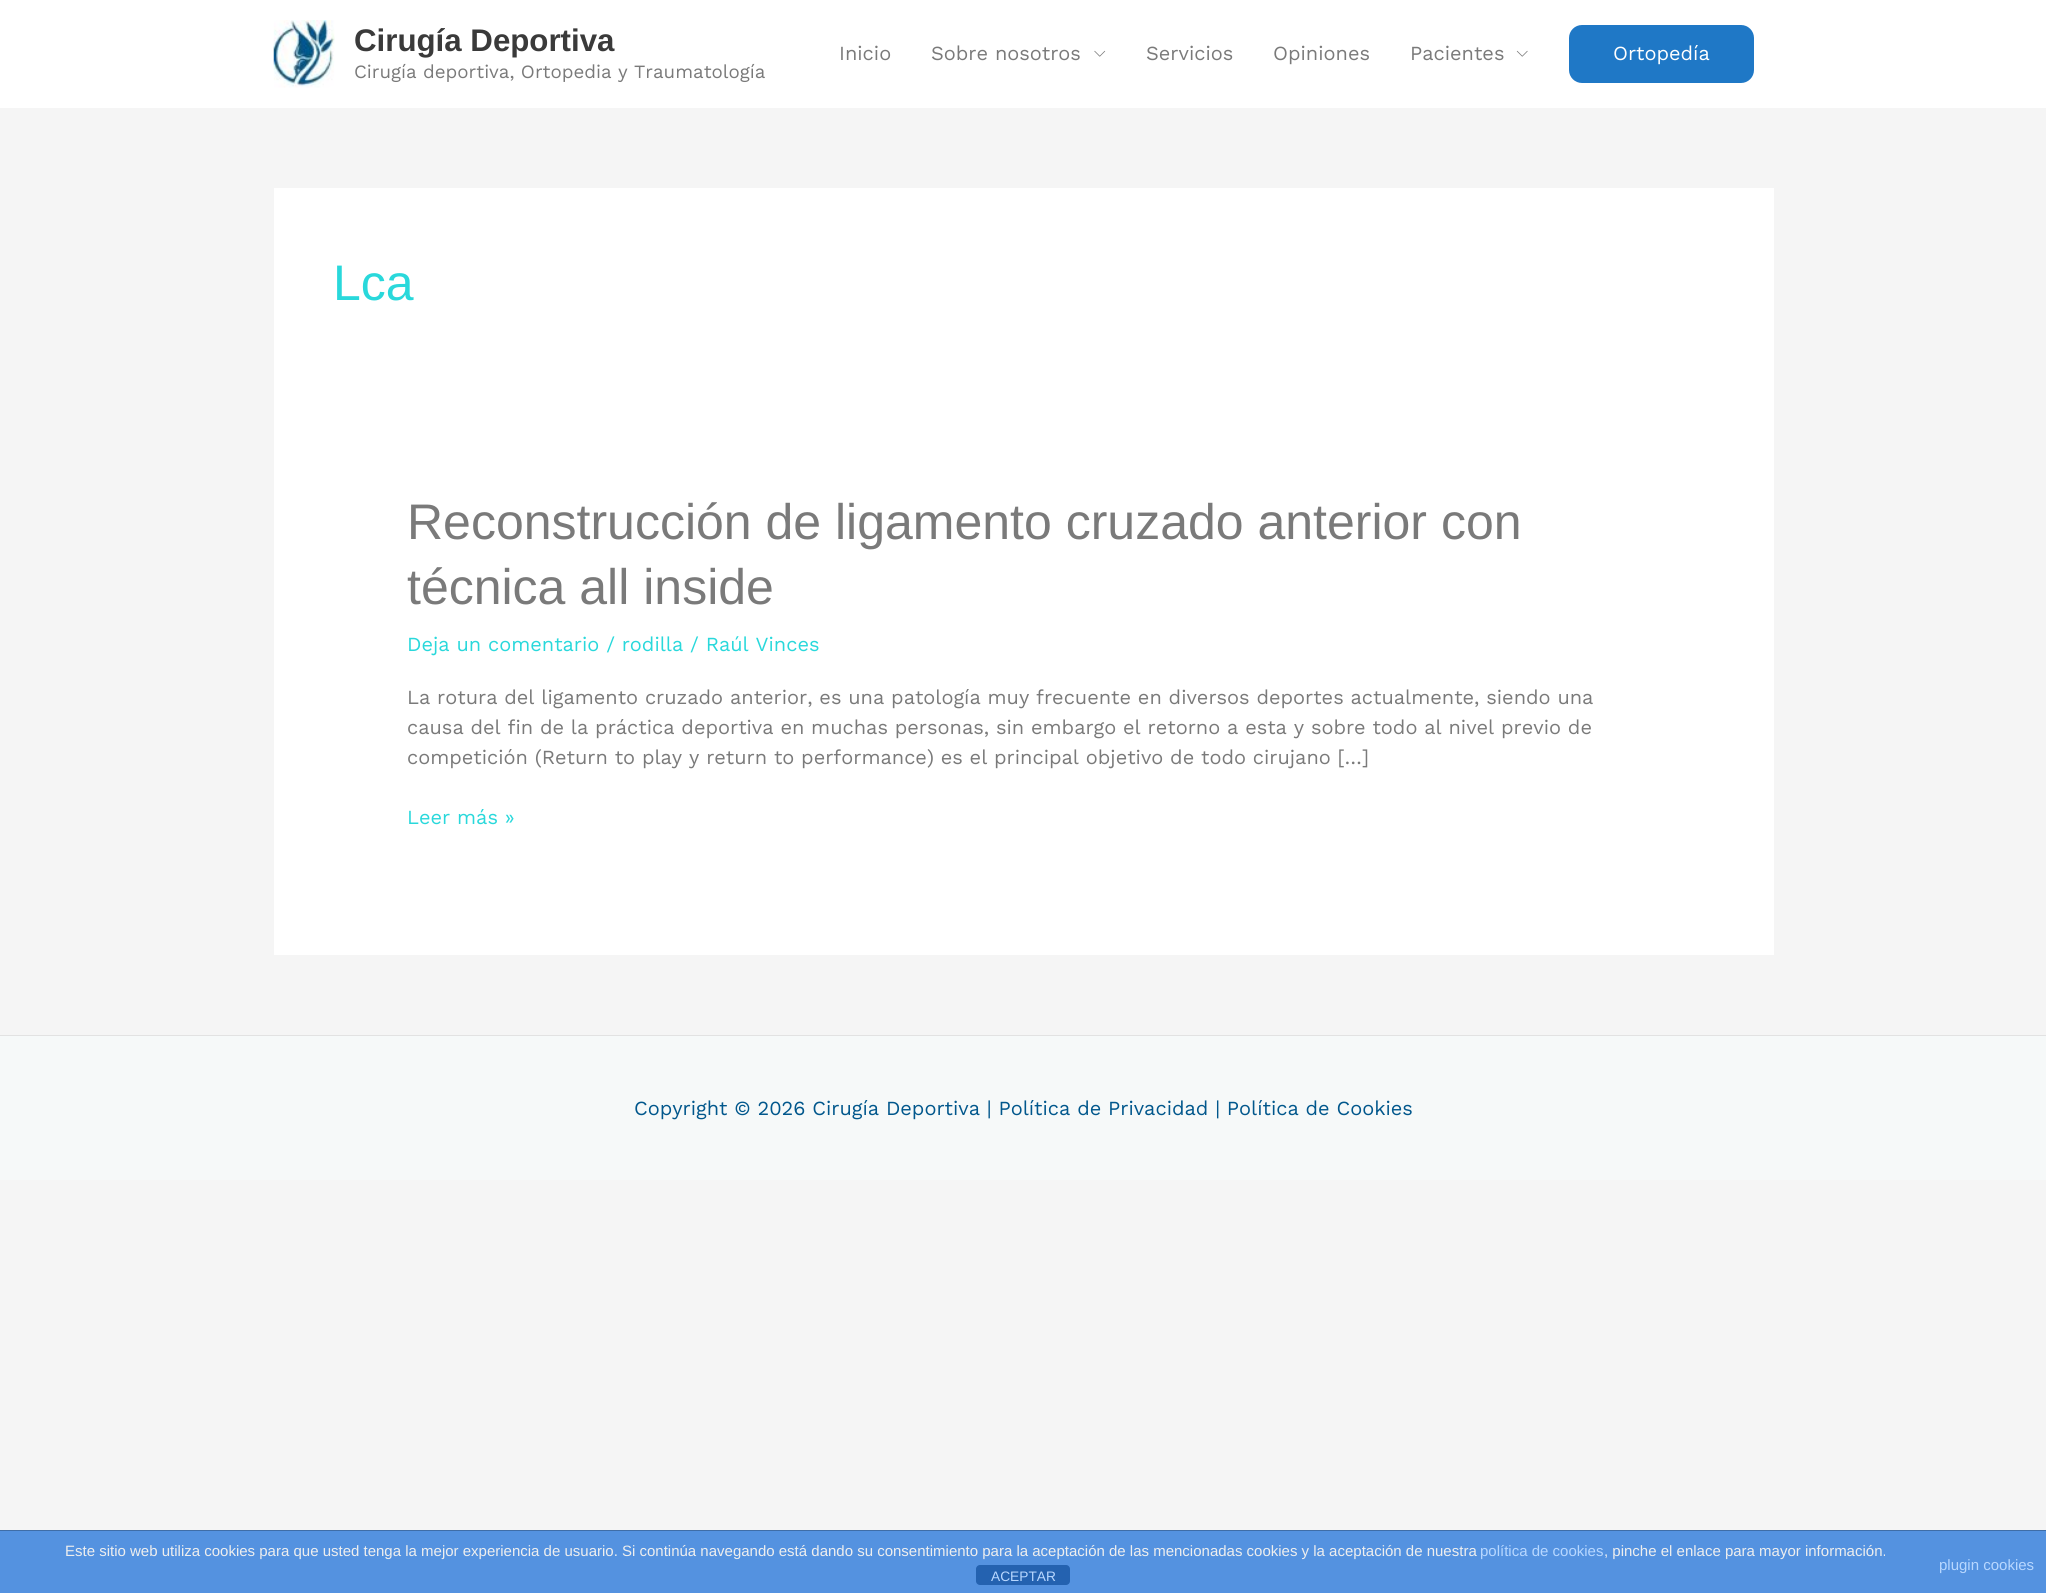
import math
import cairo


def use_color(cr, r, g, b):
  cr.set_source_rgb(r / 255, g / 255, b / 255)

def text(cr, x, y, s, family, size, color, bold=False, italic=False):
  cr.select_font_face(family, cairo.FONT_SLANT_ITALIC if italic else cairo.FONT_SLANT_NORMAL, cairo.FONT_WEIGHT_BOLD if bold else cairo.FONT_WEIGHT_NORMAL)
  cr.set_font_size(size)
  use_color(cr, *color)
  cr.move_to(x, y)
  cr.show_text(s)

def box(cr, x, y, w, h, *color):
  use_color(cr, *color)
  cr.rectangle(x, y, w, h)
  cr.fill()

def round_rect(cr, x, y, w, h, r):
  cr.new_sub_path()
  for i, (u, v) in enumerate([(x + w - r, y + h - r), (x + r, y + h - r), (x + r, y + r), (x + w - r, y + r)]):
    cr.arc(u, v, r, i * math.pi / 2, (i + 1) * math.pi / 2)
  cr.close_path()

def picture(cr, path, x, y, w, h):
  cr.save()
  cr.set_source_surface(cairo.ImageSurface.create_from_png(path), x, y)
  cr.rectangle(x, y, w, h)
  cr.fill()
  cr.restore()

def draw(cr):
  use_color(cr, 245, 245, 245)
  cr.paint()
  box(cr, 0, 0, 2046, 108, 255, 255, 255)
  picture(cr, "img_01.png", 273, 20, 62, 68)
  picture(cr, "img_02.png", 1094, 50, 12, 7)
  picture(cr, "img_03.png", 1516, 50, 12, 7)
  use_color(cr, 31, 120, 198)
  round_rect(cr, 1569, 25, 185, 58, 13)
  cr.fill()
  box(cr, 274, 188, 1500, 767, 255, 255, 255)
  box(cr, 0, 1035, 2046, 1, 226, 226, 226)
  box(cr, 0, 1036, 2046, 144, 246, 249, 249)
  box(cr, 0, 1531, 2046, 62, 84, 146, 224)
  box(cr, 0, 1530, 2046, 1, 63, 109, 167)
  use_color(cr, 36, 98, 176)
  round_rect(cr, 976, 1565, 94, 20, 4)
  cr.fill()
  text(cr, 354, 51, "Cirugía Deportiva", "Liberation Sans", 31.25, (58, 58, 58), bold=True)
  text(cr, 354, 78, "Cirugía deportiva, Ortopedia y Traumatología", "Work Sans", 18.75, (122, 122, 122))
  text(cr, 839, 60, "Inicio", "Work Sans", 20, (122, 122, 122))
  text(cr, 931, 60, "Sobre nosotros", "Work Sans", 20, (122, 122, 122))
  text(cr, 1146, 60, "Servicios", "Work Sans", 20, (122, 122, 122))
  text(cr, 1273, 60, "Opiniones", "Work Sans", 20, (122, 122, 122))
  text(cr, 1410, 60, "Pacientes", "Work Sans", 20, (122, 122, 122))
  text(cr, 1613, 60, "Ortopedía", "Work Sans", 20, (255, 255, 255))
  text(cr, 333, 300, "Lca", "Liberation Sans", 50, (41, 216, 219))
  text(cr, 407, 539, "Reconstrucción de ligamento cruzado anterior con", "Liberation Sans", 50, (122, 122, 122))
  text(cr, 407, 604, "técnica all inside", "Liberation Sans", 50, (122, 122, 122))
  text(cr, 407, 651, "Deja un comentario / rodilla / Raúl Vinces", "Work Sans", 20, (41, 216, 219))
  text(cr, 407, 704, "La rotura del ligamento cruzado anterior, es una patología muy frecuente en diversos deportes actualmente, siendo una", "Work Sans", 20, (122, 122, 122))
  text(cr, 407, 734, "causa del fin de la práctica deportiva en muchas personas, sin embargo el retorno a esta y sobre todo al nivel previo de", "Work Sans", 20, (122, 122, 122))
  text(cr, 407, 764, "competición (Return to play y return to performance) es el principal objetivo de todo cirujano […]", "Work Sans", 20, (122, 122, 122))
  text(cr, 407, 824, "Leer más »", "Work Sans", 20, (41, 216, 219))
  text(cr, 634, 1115, "Copyright © 2026 Cirugía Deportiva | Política de Privacidad | Política de Cookies", "Work Sans", 20, (1, 87, 140))
  text(cr, 65, 1556, "Este sitio web utiliza cookies para que usted tenga la mejor experiencia de usuario. Si continúa navegando está dando su consentimiento para la aceptación de las mencionadas cookies y la aceptación de nuestra", "Liberation Sans", 15, (238, 238, 238))
  text(cr, 1480, 1556, "política de cookies", "Liberation Sans", 15, (183, 215, 255))
  text(cr, 1604, 1556, ", pinche el enlace para mayor información.", "Liberation Sans", 15, (238, 238, 238))
  text(cr, 1939, 1570, "plugin cookies", "Liberation Sans", 15, (183, 215, 255))
  text(cr, 991, 1581, "ACEPTAR", "Liberation Sans", 13.75, (183, 215, 255))


surface = cairo.ImageSurface(cairo.FORMAT_RGB24, 2046, 1593)
cr = cairo.Context(surface)
options = cairo.FontOptions()
options.set_hint_metrics(cairo.HINT_METRICS_OFF)
options.set_hint_style(cairo.HINT_STYLE_NONE)
cr.set_font_options(options)
cr.set_miter_limit(4)
draw(cr)
surface.write_to_png("out.png")
